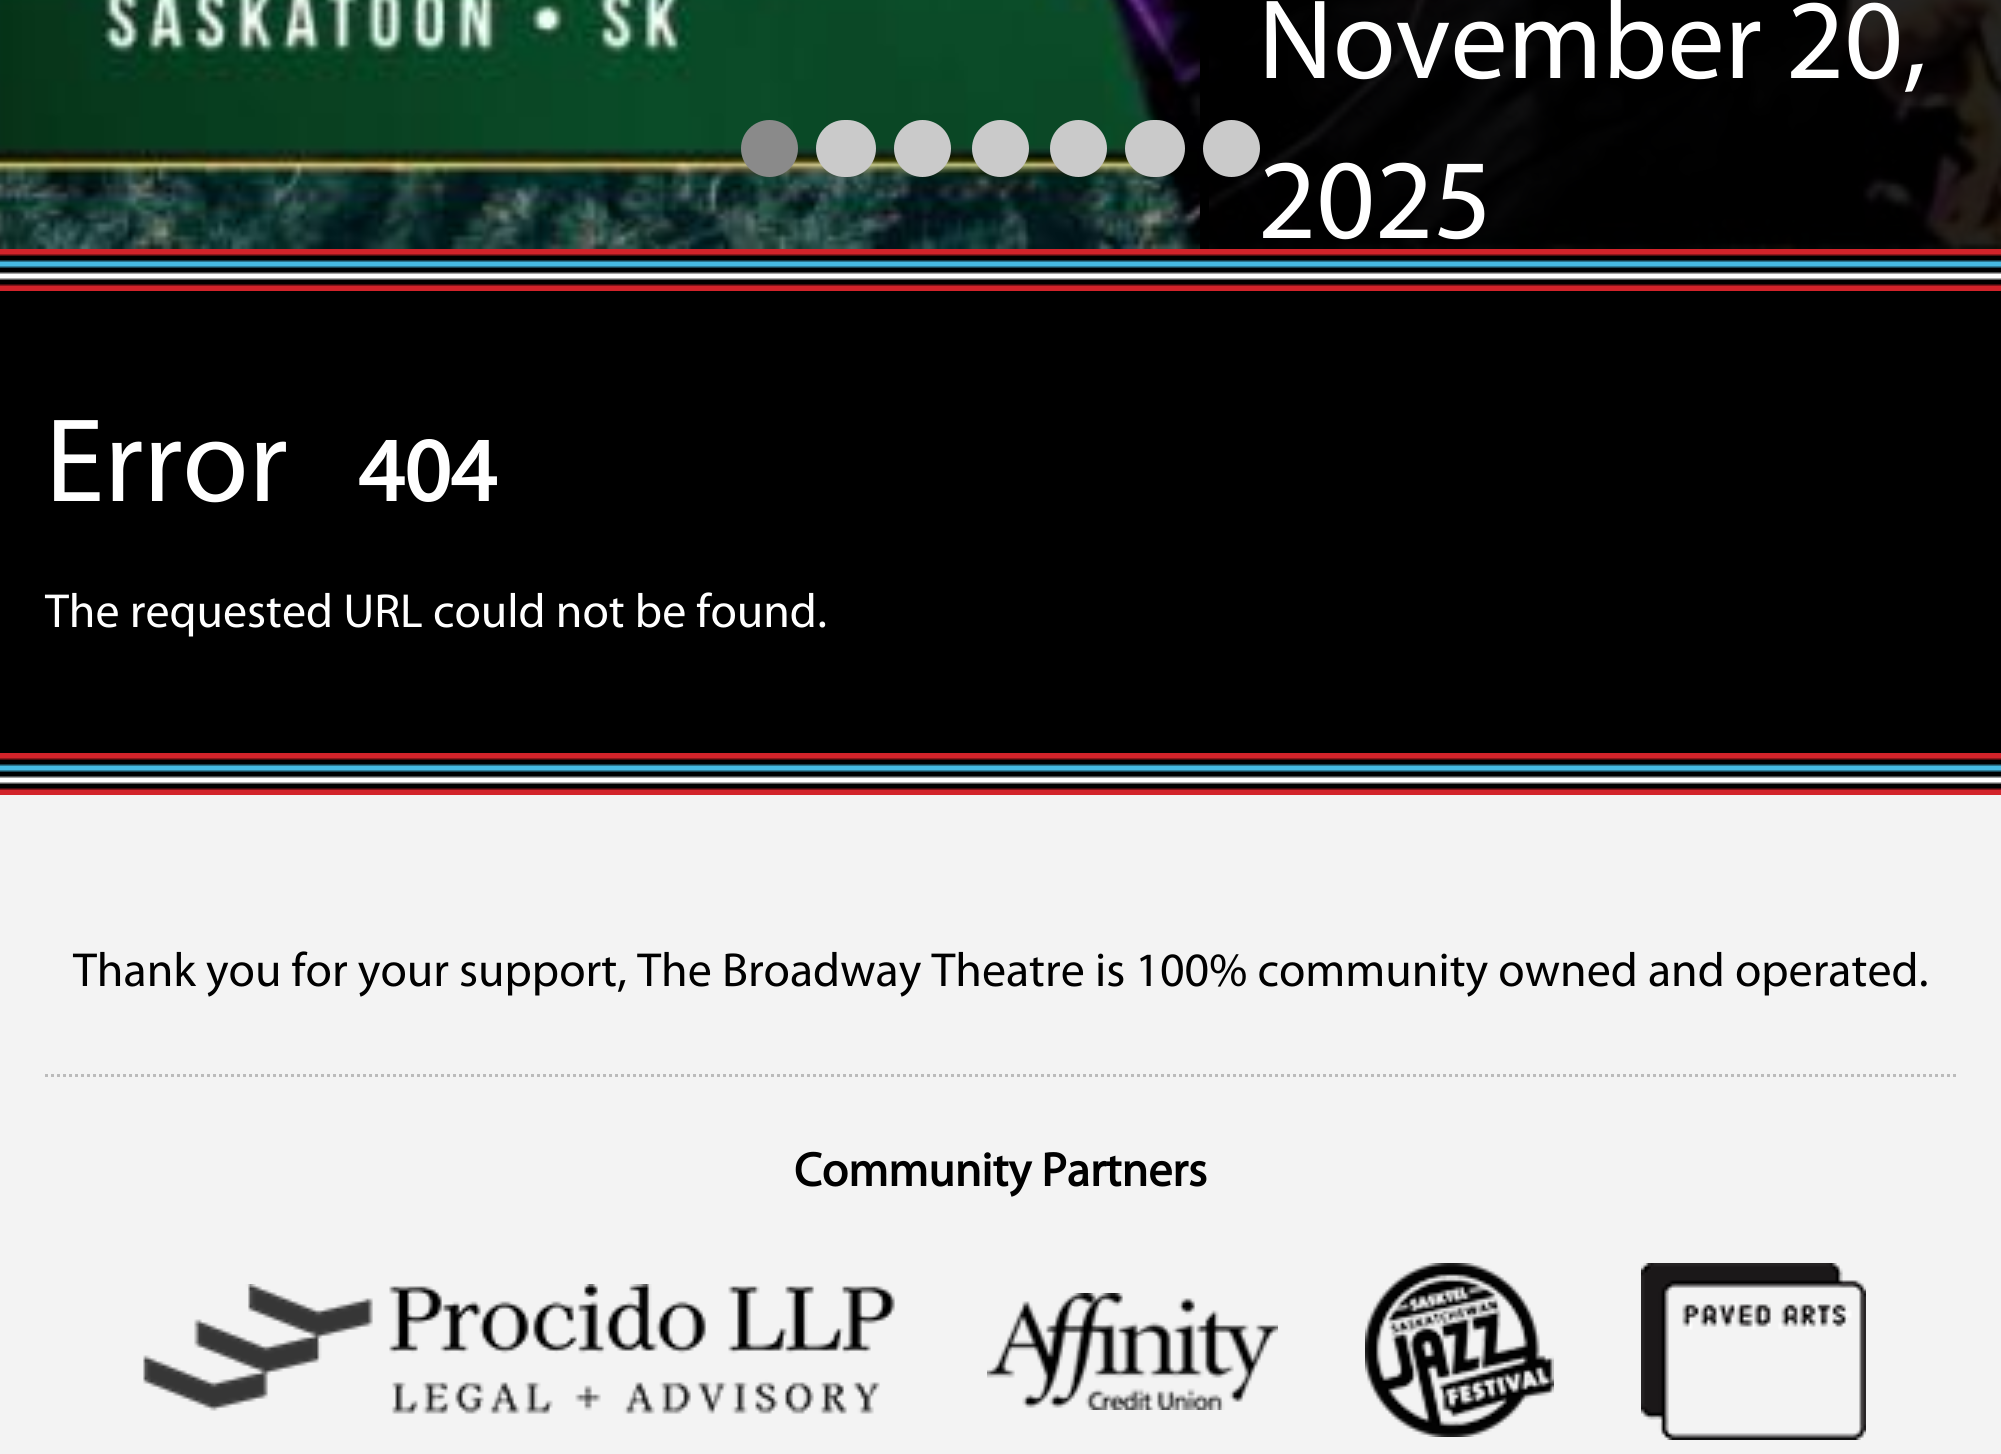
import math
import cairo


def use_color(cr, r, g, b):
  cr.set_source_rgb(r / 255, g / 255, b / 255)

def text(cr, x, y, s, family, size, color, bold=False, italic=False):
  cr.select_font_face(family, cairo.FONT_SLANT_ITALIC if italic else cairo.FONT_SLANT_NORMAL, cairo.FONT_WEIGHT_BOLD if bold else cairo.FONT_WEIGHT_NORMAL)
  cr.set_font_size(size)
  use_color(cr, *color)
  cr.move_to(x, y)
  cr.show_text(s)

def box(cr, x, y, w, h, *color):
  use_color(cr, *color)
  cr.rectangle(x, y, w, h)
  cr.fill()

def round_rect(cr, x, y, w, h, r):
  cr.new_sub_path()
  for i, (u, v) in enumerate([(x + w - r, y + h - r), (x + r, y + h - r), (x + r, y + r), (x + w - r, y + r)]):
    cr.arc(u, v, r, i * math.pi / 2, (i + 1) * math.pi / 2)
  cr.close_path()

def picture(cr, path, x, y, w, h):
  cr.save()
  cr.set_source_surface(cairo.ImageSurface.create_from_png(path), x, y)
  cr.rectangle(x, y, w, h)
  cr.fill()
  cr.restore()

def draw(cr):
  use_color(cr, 0, 0, 0)
  cr.paint()
  picture(cr, "img_01.png", 0, 0, 2001, 249)
  use_color(cr, 138, 138, 138)
  cr.arc(769.5, 148.5, 28.5, 0, 2 * math.pi)
  cr.fill()
  use_color(cr, 202, 202, 202)
  round_rect(cr, 816, 120, 60, 57, 28.5)
  cr.fill()
  cr.arc(922.5, 148.5, 28.5, 0, 2 * math.pi)
  cr.fill()
  cr.arc(1000.5, 148.5, 28.5, 0, 2 * math.pi)
  cr.fill()
  cr.arc(1078.5, 148.5, 28.5, 0, 2 * math.pi)
  cr.fill()
  round_rect(cr, 1125, 120, 60, 57, 28.5)
  cr.fill()
  cr.set_source_rgba(0, 0, 0, 0.85)
  cr.rectangle(1209, 0, 792, 249)
  cr.fill()
  cr.save()
  cr.rectangle(0, 0, 2001, 249)
  cr.clip()
  use_color(cr, 0, 0, 0)
  cr.set_fill_rule(cairo.FILL_RULE_EVEN_ODD)
  cr.new_path()
  cr.move_to(1248, -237)
  cr.line_to(2001, -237)
  cr.line_to(2001, 663)
  cr.line_to(1200, 663)
  cr.line_to(1200, -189)
  cr.curve_to(1200, -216, 1221, -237, 1248, -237)
  cr.close_path()
  cr.move_to(1248, -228)
  cr.line_to(2001, -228)
  cr.line_to(2001, 663)
  cr.line_to(1209, 663)
  cr.line_to(1209, -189)
  cr.curve_to(1209, -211, 1226, -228, 1248, -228)
  cr.close_path()
  cr.fill()
  cr.restore()
  use_color(cr, 202, 202, 202)
  cr.arc(1231.5, 148.5, 28.5, 0, 2 * math.pi)
  cr.fill()
  picture(cr, "img_02.png", 0, 249, 2001, 42)
  picture(cr, "img_02.png", 0, 753, 2001, 42)
  box(cr, 0, 795, 2001, 659, 243, 243, 243)
  cr.new_path()
  cr.move_to(45, 1075.5)
  cr.line_to(1956, 1075.5)
  use_color(cr, 187, 187, 187)
  cr.set_line_width(3)
  cr.set_dash([3, 3])
  cr.stroke()
  picture(cr, "img_03.png", 143, 1284, 752, 130)
  picture(cr, "img_04.png", 987, 1293, 291, 117)
  picture(cr, "img_05.png", 1365, 1263, 189, 174)
  picture(cr, "img_06.png", 1641, 1263, 225, 177)
  text(cr, 1258, 78, "November 20,", "Myriad", 114, (255, 255, 255))
  text(cr, 1258, 238, "2025", "Myriad", 114, (255, 255, 255))
  text(cr, 45, 501, "Error", "Myriad", 120, (255, 255, 255))
  text(cr, 358, 501, "404", "Myriad", 90, (255, 255, 255), bold=True)
  text(cr, 45, 627, "The requested URL could not be found.", "Myriad", 48, (255, 255, 255))
  text(cr, 73, 986, "Thank you for your support, The Broadway Theatre is 100% community owned and operated.", "Myriad", 48, (0, 0, 0))
  text(cr, 794, 1186, "Community Partners", "Myriad", 48, (0, 0, 0), bold=True)


surface = cairo.ImageSurface(cairo.FORMAT_RGB24, 2001, 1454)
cr = cairo.Context(surface)
options = cairo.FontOptions()
options.set_hint_metrics(cairo.HINT_METRICS_OFF)
options.set_hint_style(cairo.HINT_STYLE_NONE)
cr.set_font_options(options)
cr.set_miter_limit(4)
draw(cr)
surface.write_to_png("out.png")
